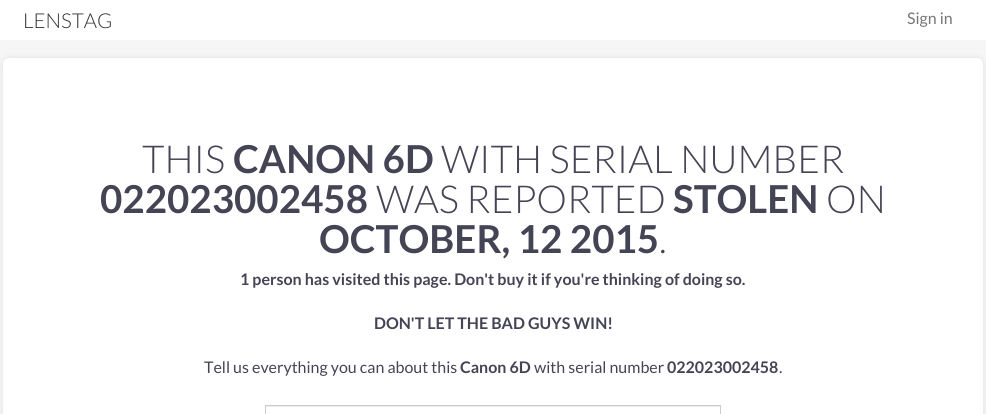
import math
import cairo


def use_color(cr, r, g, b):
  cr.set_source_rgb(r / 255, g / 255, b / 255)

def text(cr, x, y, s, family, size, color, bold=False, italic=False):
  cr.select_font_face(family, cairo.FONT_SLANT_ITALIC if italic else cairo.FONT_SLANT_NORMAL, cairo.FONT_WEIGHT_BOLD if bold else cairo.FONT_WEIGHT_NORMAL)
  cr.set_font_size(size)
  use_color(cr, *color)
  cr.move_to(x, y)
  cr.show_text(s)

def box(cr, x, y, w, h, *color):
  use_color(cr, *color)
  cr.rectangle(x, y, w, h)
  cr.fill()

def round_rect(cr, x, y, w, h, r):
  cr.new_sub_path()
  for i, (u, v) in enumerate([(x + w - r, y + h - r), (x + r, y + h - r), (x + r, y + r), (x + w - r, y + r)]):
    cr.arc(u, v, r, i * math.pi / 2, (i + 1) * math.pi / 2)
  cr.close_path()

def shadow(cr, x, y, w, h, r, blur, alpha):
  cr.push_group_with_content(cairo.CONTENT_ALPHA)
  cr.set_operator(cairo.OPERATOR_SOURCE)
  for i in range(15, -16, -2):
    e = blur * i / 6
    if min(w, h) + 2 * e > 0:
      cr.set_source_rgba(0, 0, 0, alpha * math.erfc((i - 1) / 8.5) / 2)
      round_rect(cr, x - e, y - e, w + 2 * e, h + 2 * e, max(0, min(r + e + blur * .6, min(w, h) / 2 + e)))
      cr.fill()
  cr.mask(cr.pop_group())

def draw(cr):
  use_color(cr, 246, 246, 246)
  cr.paint()
  box(cr, 0, 0, 986, 40, 255, 255, 255)
  use_color(cr, 0, 0, 0)
  shadow(cr, 3, 58, 980, 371, 6, 3, 0.1)
  use_color(cr, 255, 255, 255)
  round_rect(cr, 3, 58, 980, 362, 6)
  cr.fill()
  box(cr, 266, 406, 454, 1, 236, 236, 236)
  cr.rectangle(265.5, 405.5, 455, 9)
  use_color(cr, 204, 204, 204)
  cr.set_line_width(1)
  cr.stroke()
  text(cr, 23, 28, "LENSTAG", "Lato Light", 20.5, (51, 51, 51))
  text(cr, 907, 24, "Sign in", "Lato", 16, (119, 119, 119))
  text(cr, 142, 173, "THIS", "Lato Light", 38.5, (68, 68, 85))
  text(cr, 233, 173, "CANON 6D", "Lato", 38.5, (68, 68, 85), bold=True)
  text(cr, 441, 173, "WITH SERIAL NUMBER", "Lato Light", 38.5, (68, 68, 85))
  text(cr, 100, 213, "022023002458", "Lato", 38.5, (68, 68, 85), bold=True)
  text(cr, 376, 213, "WAS REPORTED", "Lato Light", 38.5, (68, 68, 85))
  text(cr, 673, 213, "STOLEN", "Lato", 38.5, (68, 68, 85), bold=True)
  text(cr, 826, 213, "ON", "Lato Light", 38.5, (68, 68, 85))
  text(cr, 319, 253, "OCTOBER, 12 2015", "Lato", 38.5, (68, 68, 85), bold=True)
  text(cr, 659, 253, ".", "Lato Light", 38.5, (68, 68, 85))
  text(cr, 240, 285, "1 person has visited this page. Don't buy it if you're thinking of doing so.", "Lato", 16, (68, 68, 85), bold=True)
  text(cr, 374, 329, "DON'T LET THE BAD GUYS WIN!", "Lato", 16, (68, 68, 85), bold=True)
  text(cr, 204, 373, "Tell us everything you can about this", "Lato", 16, (68, 68, 85))
  text(cr, 460, 373, "Canon 6D", "Lato", 16, (68, 68, 85), bold=True)
  text(cr, 534, 373, "with serial number", "Lato", 16, (68, 68, 85))
  text(cr, 667, 373, "022023002458", "Lato", 16, (68, 68, 85), bold=True)
  text(cr, 779, 373, ".", "Lato", 16, (68, 68, 85))


surface = cairo.ImageSurface(cairo.FORMAT_RGB24, 986, 414)
cr = cairo.Context(surface)
options = cairo.FontOptions()
options.set_hint_metrics(cairo.HINT_METRICS_OFF)
options.set_hint_style(cairo.HINT_STYLE_NONE)
cr.set_font_options(options)
cr.set_miter_limit(4)
draw(cr)
surface.write_to_png("out.png")
